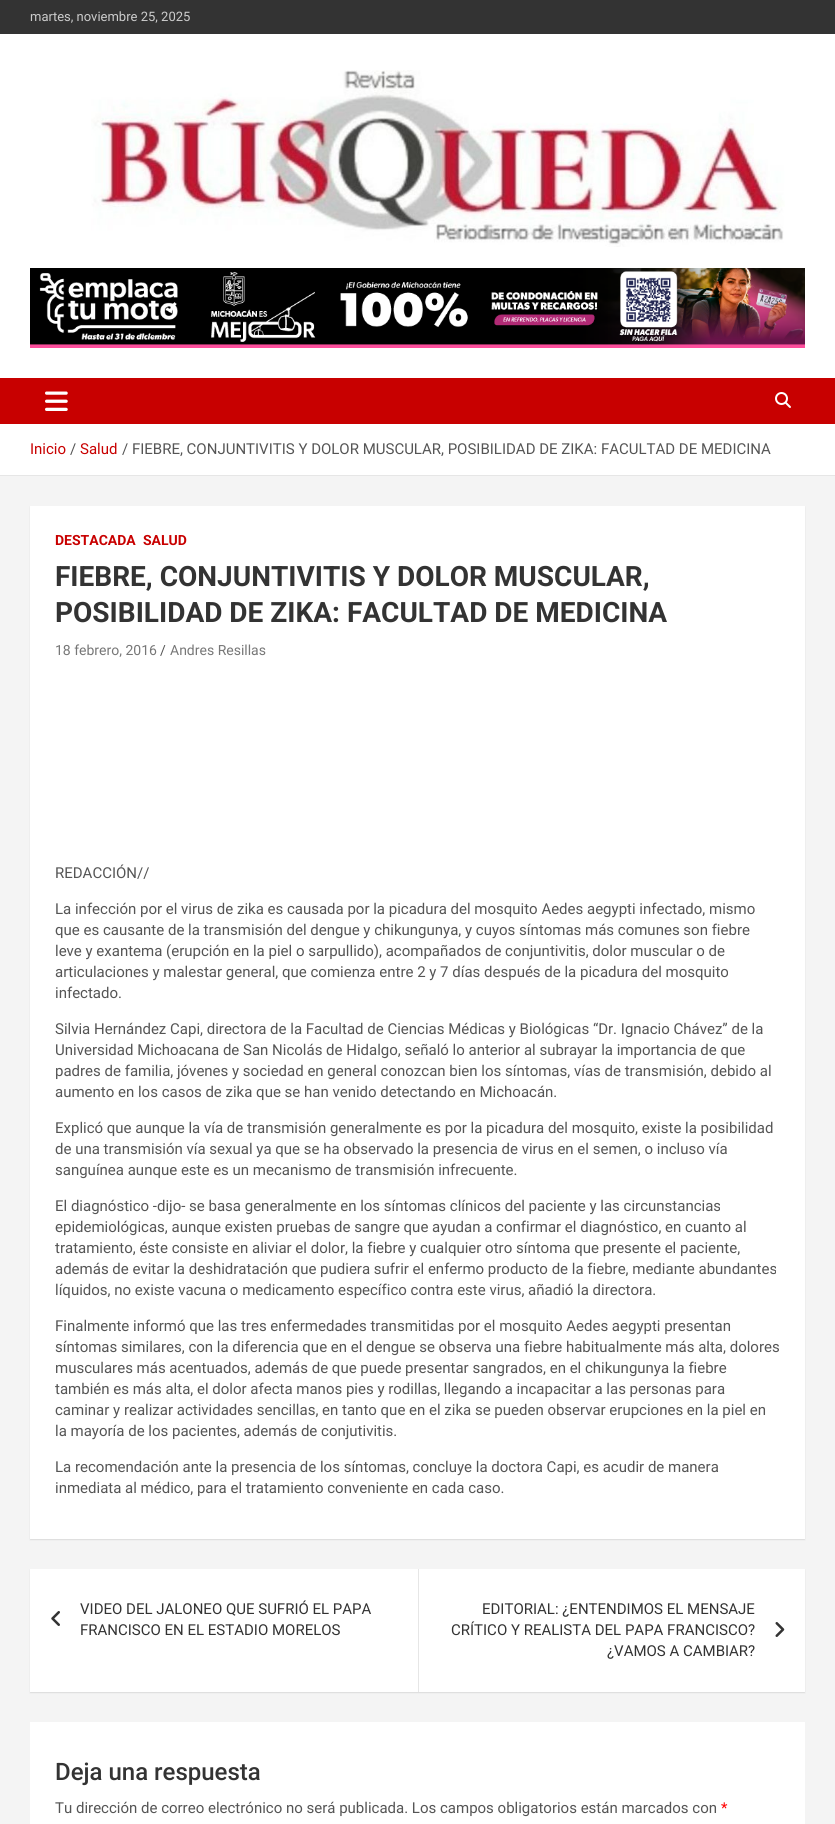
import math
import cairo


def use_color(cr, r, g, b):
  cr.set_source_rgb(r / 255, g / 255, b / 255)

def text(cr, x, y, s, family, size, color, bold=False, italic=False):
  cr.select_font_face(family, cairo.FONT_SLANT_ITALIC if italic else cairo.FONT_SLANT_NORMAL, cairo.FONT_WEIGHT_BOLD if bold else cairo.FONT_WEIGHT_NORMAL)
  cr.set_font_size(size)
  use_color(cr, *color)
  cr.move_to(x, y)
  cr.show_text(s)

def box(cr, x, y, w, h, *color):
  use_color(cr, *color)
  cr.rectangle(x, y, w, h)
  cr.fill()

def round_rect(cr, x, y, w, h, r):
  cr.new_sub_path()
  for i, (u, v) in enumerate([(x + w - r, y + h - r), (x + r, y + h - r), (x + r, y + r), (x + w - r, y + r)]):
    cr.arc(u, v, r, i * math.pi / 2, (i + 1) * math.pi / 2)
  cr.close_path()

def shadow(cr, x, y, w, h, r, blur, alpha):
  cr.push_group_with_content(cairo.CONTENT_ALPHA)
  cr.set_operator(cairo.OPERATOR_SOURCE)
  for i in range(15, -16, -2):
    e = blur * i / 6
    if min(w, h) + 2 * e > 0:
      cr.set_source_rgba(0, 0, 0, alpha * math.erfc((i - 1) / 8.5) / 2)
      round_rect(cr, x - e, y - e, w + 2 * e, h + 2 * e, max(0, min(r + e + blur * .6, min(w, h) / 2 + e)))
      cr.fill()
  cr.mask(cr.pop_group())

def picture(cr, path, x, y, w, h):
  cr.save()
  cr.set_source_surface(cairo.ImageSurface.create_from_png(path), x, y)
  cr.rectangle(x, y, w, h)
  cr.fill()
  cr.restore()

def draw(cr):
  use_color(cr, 244, 244, 244)
  cr.paint()
  box(cr, 0, 0, 835, 34, 51, 51, 51)
  box(cr, 0, 34, 835, 344, 255, 255, 255)
  picture(cr, "img_01.png", 91, 70, 694, 177)
  picture(cr, "img_02.png", 30, 268, 775, 80)
  box(cr, 0, 378, 835, 46, 200, 0, 0)
  picture(cr, "img_03.png", 45, 391, 23, 20)
  picture(cr, "img_04.png", 775, 392, 16, 16)
  box(cr, 0, 424, 835, 51, 255, 255, 255)
  box(cr, 0, 475, 835, 1, 230, 230, 230)
  use_color(cr, 0, 0, 0)
  shadow(cr, 30, 507, 775, 1033, 0, 0.5, 0.1)
  box(cr, 30, 506, 775, 1033, 255, 255, 255)
  use_color(cr, 0, 0, 0)
  shadow(cr, 30, 1570, 775, 123, 0, 0.5, 0.1)
  box(cr, 30, 1569, 775, 123, 255, 255, 255)
  picture(cr, "img_05.png", 51, 1611, 9, 15)
  box(cr, 418, 1569, 1, 123, 230, 230, 230)
  picture(cr, "img_06.png", 775, 1622, 10, 15)
  box(cr, 30, 1722, 775, 102, 255, 255, 255)
  text(cr, 30, 21, "martes, noviembre 25, 2025", "Roboto", 13, (204, 204, 204))
  text(cr, 30, 454, "Inicio", "Roboto", 15, (200, 0, 0))
  text(cr, 70, 454, "/", "Roboto", 15, (85, 85, 85))
  text(cr, 80, 454, "Salud", "Roboto", 15, (200, 0, 0))
  text(cr, 122, 454, "/ FIEBRE, CONJUNTIVITIS Y DOLOR MUSCULAR, POSIBILIDAD DE ZIKA: FACULTAD DE MEDICINA", "Roboto", 15, (85, 85, 85))
  text(cr, 55, 545, "DESTACADA", "Roboto", 14, (200, 0, 0), bold=True)
  text(cr, 143, 545, "SALUD", "Roboto", 14, (200, 0, 0), bold=True)
  text(cr, 55, 586, "FIEBRE, CONJUNTIVITIS Y DOLOR MUSCULAR,", "Roboto", 28, (51, 51, 51), bold=True)
  text(cr, 55, 622, "POSIBILIDAD DE ZIKA: FACULTAD DE MEDICINA", "Roboto", 28, (51, 51, 51), bold=True)
  text(cr, 55, 655, "18 febrero, 2016", "Roboto", 14, (119, 119, 119))
  text(cr, 160, 655, "/", "Roboto", 14, (85, 85, 85))
  text(cr, 170, 655, "Andres Resillas", "Roboto", 14, (119, 119, 119))
  text(cr, 55, 878, "REDACCIÓN//", "Roboto", 15, (85, 85, 85))
  text(cr, 55, 914, "La infección por el virus de zika es causada por la picadura del mosquito Aedes aegypti infectado, mismo", "Roboto", 15, (85, 85, 85))
  text(cr, 55, 935, "que es causante de la transmisión del dengue y chikungunya, y cuyos síntomas más comunes son fiebre", "Roboto", 15, (85, 85, 85))
  text(cr, 55, 956, "leve y exantema (erupción en la piel o sarpullido), acompañados de conjuntivitis, dolor muscular o de", "Roboto", 15, (85, 85, 85))
  text(cr, 55, 977, "articulaciones y malestar general, que comienza entre 2 y 7 días después de la picadura del mosquito", "Roboto", 15, (85, 85, 85))
  text(cr, 55, 998, "infectado.", "Roboto", 15, (85, 85, 85))
  text(cr, 55, 1034, "Silvia Hernández Capi, directora de la Facultad de Ciencias Médicas y Biológicas “Dr. Ignacio Chávez” de la", "Roboto", 15, (85, 85, 85))
  text(cr, 55, 1055, "Universidad Michoacana de San Nicolás de Hidalgo, señaló lo anterior al subrayar la importancia de que", "Roboto", 15, (85, 85, 85))
  text(cr, 55, 1076, "padres de familia, jóvenes y sociedad en general conozcan bien los síntomas, vías de transmisión, debido al", "Roboto", 15, (85, 85, 85))
  text(cr, 55, 1097, "aumento en los casos de zika que se han venido detectando en Michoacán.", "Roboto", 15, (85, 85, 85))
  text(cr, 55, 1133, "Explicó que aunque la vía de transmisión generalmente es por la picadura del mosquito, existe la posibilidad", "Roboto", 15, (85, 85, 85))
  text(cr, 55, 1154, "de una transmisión vía sexual ya que se ha observado la presencia de virus en el semen, o incluso vía", "Roboto", 15, (85, 85, 85))
  text(cr, 55, 1175, "sanguínea aunque este es un mecanismo de transmisión infrecuente.", "Roboto", 15, (85, 85, 85))
  text(cr, 55, 1211, "El diagnóstico -dijo- se basa generalmente en los síntomas clínicos del paciente y las circunstancias", "Roboto", 15, (85, 85, 85))
  text(cr, 55, 1232, "epidemiológicas, aunque existen pruebas de sangre que ayudan a confirmar el diagnóstico, en cuanto al", "Roboto", 15, (85, 85, 85))
  text(cr, 55, 1253, "tratamiento, éste consiste en aliviar el dolor, la fiebre y cualquier otro síntoma que presente el paciente,", "Roboto", 15, (85, 85, 85))
  text(cr, 55, 1274, "además de evitar la deshidratación que pudiera sufrir el enfermo producto de la fiebre, mediante abundantes", "Roboto", 15, (85, 85, 85))
  text(cr, 55, 1295, "líquidos, no existe vacuna o medicamento específico contra este virus, añadió la directora.", "Roboto", 15, (85, 85, 85))
  text(cr, 55, 1331, "Finalmente informó que las tres enfermedades transmitidas por el mosquito Aedes aegypti presentan", "Roboto", 15, (85, 85, 85))
  text(cr, 55, 1352, "síntomas similares, con la diferencia que en el dengue se observa una fiebre habitualmente más alta, dolores", "Roboto", 15, (85, 85, 85))
  text(cr, 55, 1373, "musculares más acentuados, además de que puede presentar sangrados, en el chikungunya la fiebre", "Roboto", 15, (85, 85, 85))
  text(cr, 55, 1394, "también es más alta, el dolor afecta manos pies y rodillas, llegando a incapacitar a las personas para", "Roboto", 15, (85, 85, 85))
  text(cr, 55, 1415, "caminar y realizar actividades sencillas, en tanto que en el zika se pueden observar erupciones en la piel en", "Roboto", 15, (85, 85, 85))
  text(cr, 55, 1436, "la mayoría de los pacientes, además de conjutivitis.", "Roboto", 15, (85, 85, 85))
  text(cr, 55, 1472, "La recomendación ante la presencia de los síntomas, concluye la doctora Capi, es acudir de manera", "Roboto", 15, (85, 85, 85))
  text(cr, 55, 1493, "inmediata al médico, para el tratamiento conveniente en cada caso.", "Roboto", 15, (85, 85, 85))
  text(cr, 80, 1614, "VIDEO DEL JALONEO QUE SUFRIÓ EL PAPA", "Roboto", 15, (51, 51, 51))
  text(cr, 80, 1635, "FRANCISCO EN EL ESTADIO MORELOS", "Roboto", 15, (51, 51, 51))
  text(cr, 482, 1614, "EDITORIAL: ¿ENTENDIMOS EL MENSAJE", "Roboto", 15, (51, 51, 51))
  text(cr, 451, 1635, "CRÍTICO Y REALISTA DEL PAPA FRANCISCO?", "Roboto", 15, (51, 51, 51))
  text(cr, 607, 1656, "¿VAMOS A CAMBIAR?", "Roboto", 15, (51, 51, 51))
  text(cr, 55, 1780, "Deja una respuesta", "Roboto Medium", 24, (51, 51, 51))
  text(cr, 55, 1813, "Tu dirección de correo electrónico no será publicada. Los campos obligatorios están marcados con", "Roboto", 15, (85, 85, 85))
  text(cr, 721, 1813, "*", "Roboto", 15, (255, 0, 0))


surface = cairo.ImageSurface(cairo.FORMAT_RGB24, 835, 1824)
cr = cairo.Context(surface)
options = cairo.FontOptions()
options.set_hint_metrics(cairo.HINT_METRICS_OFF)
options.set_hint_style(cairo.HINT_STYLE_NONE)
cr.set_font_options(options)
cr.set_miter_limit(4)
draw(cr)
surface.write_to_png("out.png")
